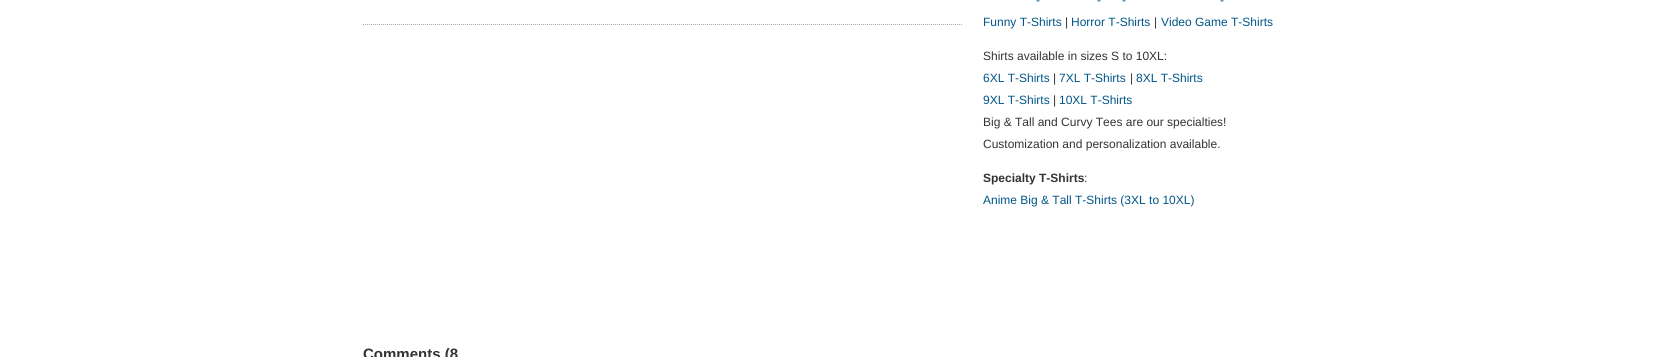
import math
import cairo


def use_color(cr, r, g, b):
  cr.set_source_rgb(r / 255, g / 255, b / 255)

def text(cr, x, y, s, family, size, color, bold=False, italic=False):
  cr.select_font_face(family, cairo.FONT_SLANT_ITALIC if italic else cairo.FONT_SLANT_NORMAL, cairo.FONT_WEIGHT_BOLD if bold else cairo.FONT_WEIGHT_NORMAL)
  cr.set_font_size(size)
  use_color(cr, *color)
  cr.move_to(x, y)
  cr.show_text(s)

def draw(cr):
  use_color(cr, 255, 255, 255)
  cr.paint()
  cr.new_path()
  cr.move_to(363, 24.5)
  cr.line_to(963, 24.5)
  use_color(cr, 170, 170, 170)
  cr.set_line_width(1)
  cr.set_dash([1, 1])
  cr.stroke()
  text(cr, 1036, 4, "-", "Liberation Sans", 12, (0, 86, 137))
  text(cr, 1097, 4, "-", "Liberation Sans", 12, (0, 86, 137))
  text(cr, 1122, 4, "-", "Liberation Sans", 12, (0, 86, 137))
  text(cr, 1220, 4, "-", "Liberation Sans", 12, (0, 86, 137))
  text(cr, 983, 26, "Funny T-Shirts", "Liberation Sans", 12, (0, 86, 137))
  text(cr, 1065, 26, "|", "Liberation Sans", 12, (51, 51, 51))
  text(cr, 1071, 26, "Horror T-Shirts", "Liberation Sans", 12, (0, 86, 137))
  text(cr, 1154, 26, "|", "Liberation Sans", 12, (51, 51, 51))
  text(cr, 1161, 26, "Video Game T-Shirts", "Liberation Sans", 12, (0, 86, 137))
  text(cr, 983, 60, "Shirts available in sizes S to 10XL:", "Liberation Sans", 12, (51, 51, 51))
  text(cr, 983, 82, "6XL T-Shirts", "Liberation Sans", 12, (0, 86, 137))
  text(cr, 1053, 82, "|", "Liberation Sans", 12, (51, 51, 51))
  text(cr, 1059, 82, "7XL T-Shirts", "Liberation Sans", 12, (0, 86, 137))
  text(cr, 1130, 82, "|", "Liberation Sans", 12, (51, 51, 51))
  text(cr, 1136, 82, "8XL T-Shirts", "Liberation Sans", 12, (0, 86, 137))
  text(cr, 983, 104, "9XL T-Shirts", "Liberation Sans", 12, (0, 86, 137))
  text(cr, 1053, 104, "|", "Liberation Sans", 12, (51, 51, 51))
  text(cr, 1059, 104, "10XL T-Shirts", "Liberation Sans", 12, (0, 86, 137))
  text(cr, 983, 126, "Big & Tall and Curvy Tees are our specialties!", "Liberation Sans", 12, (51, 51, 51))
  text(cr, 983, 148, "Customization and personalization available.", "Liberation Sans", 12, (51, 51, 51))
  text(cr, 983, 182, "Specialty T-Shirts", "Liberation Sans", 12, (51, 51, 51), bold=True)
  text(cr, 1084, 182, ":", "Liberation Sans", 12, (51, 51, 51))
  text(cr, 983, 204, "Anime Big & Tall T-Shirts (3XL to 10XL)", "Liberation Sans", 12, (0, 86, 137))
  text(cr, 363, 359, "Comments (8", "Liberation Sans", 15, (51, 51, 51), bold=True)


surface = cairo.ImageSurface(cairo.FORMAT_RGB24, 1661, 357)
cr = cairo.Context(surface)
options = cairo.FontOptions()
options.set_hint_metrics(cairo.HINT_METRICS_OFF)
options.set_hint_style(cairo.HINT_STYLE_NONE)
cr.set_font_options(options)
cr.set_miter_limit(4)
draw(cr)
surface.write_to_png("out.png")
